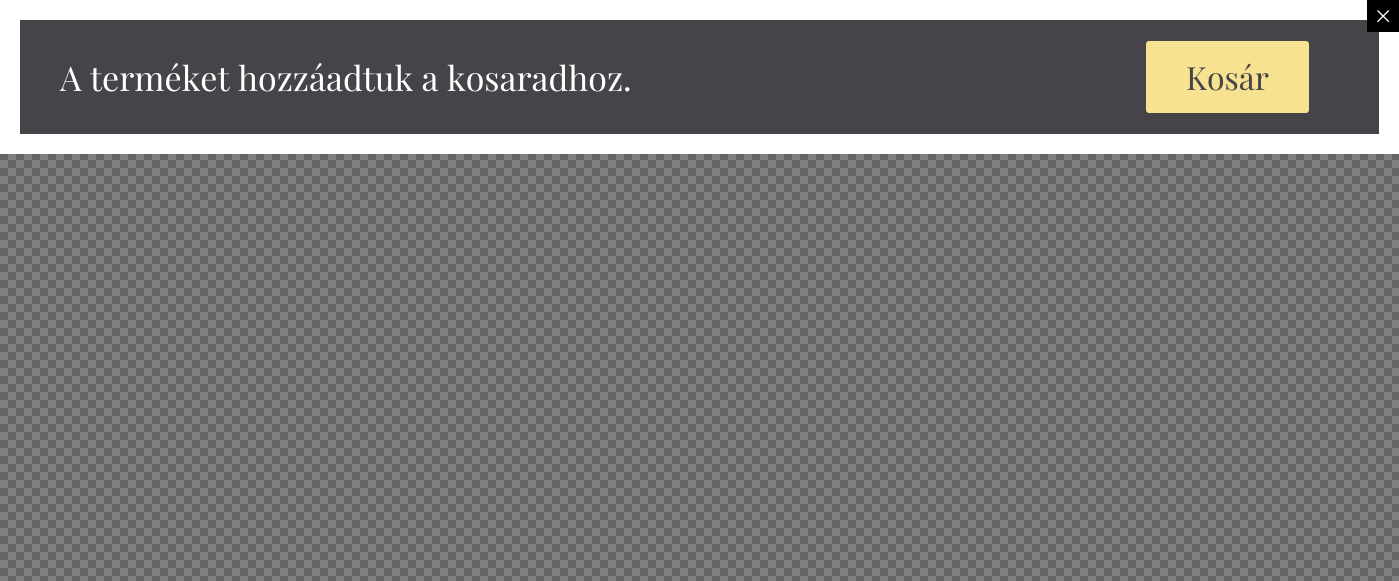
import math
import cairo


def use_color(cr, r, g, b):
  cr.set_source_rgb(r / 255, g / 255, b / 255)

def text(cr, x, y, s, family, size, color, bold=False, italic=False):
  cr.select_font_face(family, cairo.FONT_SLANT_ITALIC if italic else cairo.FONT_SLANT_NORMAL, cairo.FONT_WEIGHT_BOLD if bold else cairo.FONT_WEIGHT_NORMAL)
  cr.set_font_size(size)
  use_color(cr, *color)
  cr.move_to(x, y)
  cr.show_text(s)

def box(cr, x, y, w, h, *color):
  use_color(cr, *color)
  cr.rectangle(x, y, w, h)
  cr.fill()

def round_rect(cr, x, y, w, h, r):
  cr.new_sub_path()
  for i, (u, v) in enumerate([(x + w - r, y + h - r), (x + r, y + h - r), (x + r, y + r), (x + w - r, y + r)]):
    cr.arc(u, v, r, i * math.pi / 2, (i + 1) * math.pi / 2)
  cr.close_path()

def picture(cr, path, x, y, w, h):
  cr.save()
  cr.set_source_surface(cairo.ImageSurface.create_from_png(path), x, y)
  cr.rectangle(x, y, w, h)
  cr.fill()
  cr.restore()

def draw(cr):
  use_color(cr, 255, 255, 255)
  cr.paint()
  picture(cr, "img_01.png", 0, 154, 1399, 427)
  box(cr, 20, 20, 1359, 114, 70, 68, 72)
  box(cr, 1367, 0, 32, 32, 0, 0, 0)
  picture(cr, "img_02.png", 1377, 10, 13, 13)
  use_color(cr, 247, 226, 145)
  round_rect(cr, 1146, 41, 163, 72, 3)
  cr.fill()
  text(cr, 60, 91, "A terméket hozzáadtuk a kosaradhoz.", "Playfair Display", 34, (255, 255, 255))
  text(cr, 1186, 90, "Kosár", "Playfair Display", 32, (70, 68, 72))


surface = cairo.ImageSurface(cairo.FORMAT_RGB24, 1399, 581)
cr = cairo.Context(surface)
options = cairo.FontOptions()
options.set_hint_metrics(cairo.HINT_METRICS_OFF)
options.set_hint_style(cairo.HINT_STYLE_NONE)
cr.set_font_options(options)
cr.set_miter_limit(4)
draw(cr)
surface.write_to_png("out.png")
